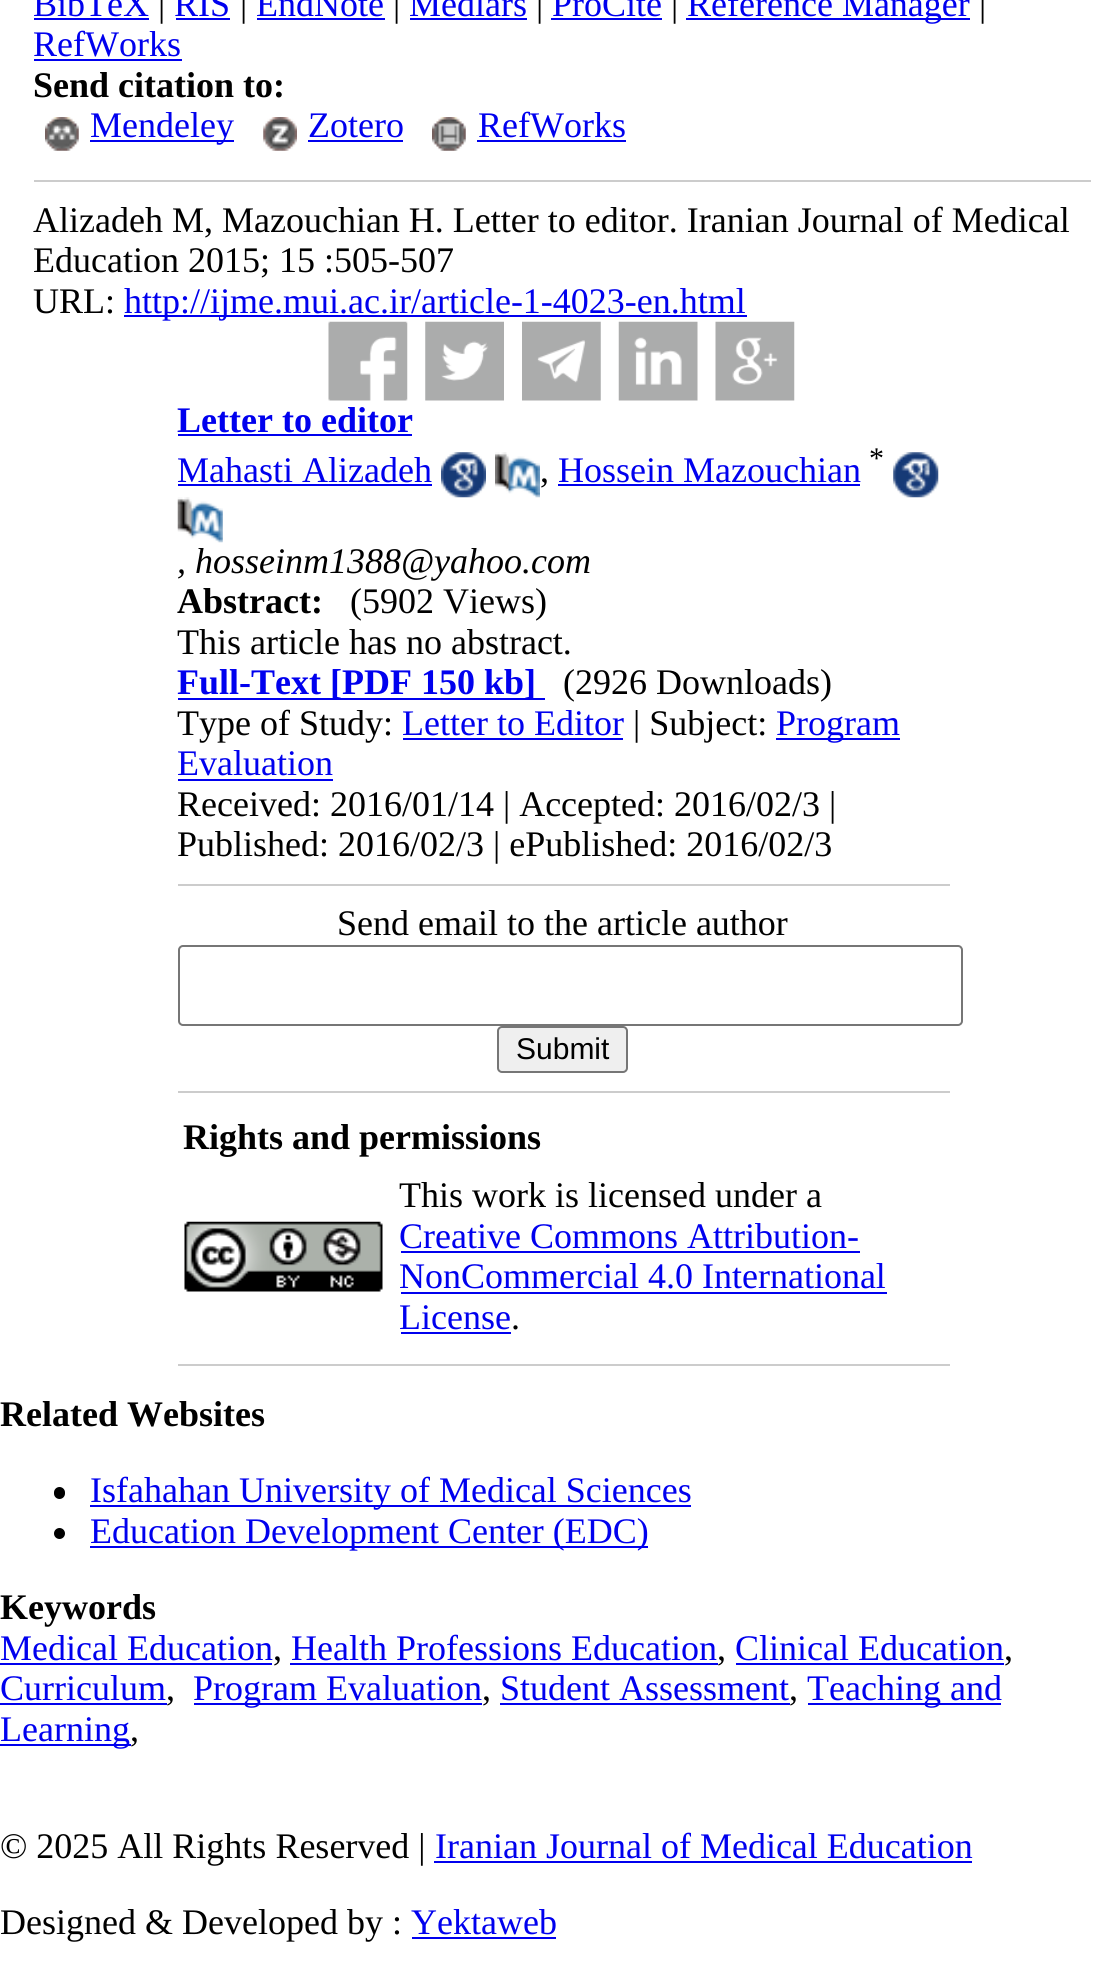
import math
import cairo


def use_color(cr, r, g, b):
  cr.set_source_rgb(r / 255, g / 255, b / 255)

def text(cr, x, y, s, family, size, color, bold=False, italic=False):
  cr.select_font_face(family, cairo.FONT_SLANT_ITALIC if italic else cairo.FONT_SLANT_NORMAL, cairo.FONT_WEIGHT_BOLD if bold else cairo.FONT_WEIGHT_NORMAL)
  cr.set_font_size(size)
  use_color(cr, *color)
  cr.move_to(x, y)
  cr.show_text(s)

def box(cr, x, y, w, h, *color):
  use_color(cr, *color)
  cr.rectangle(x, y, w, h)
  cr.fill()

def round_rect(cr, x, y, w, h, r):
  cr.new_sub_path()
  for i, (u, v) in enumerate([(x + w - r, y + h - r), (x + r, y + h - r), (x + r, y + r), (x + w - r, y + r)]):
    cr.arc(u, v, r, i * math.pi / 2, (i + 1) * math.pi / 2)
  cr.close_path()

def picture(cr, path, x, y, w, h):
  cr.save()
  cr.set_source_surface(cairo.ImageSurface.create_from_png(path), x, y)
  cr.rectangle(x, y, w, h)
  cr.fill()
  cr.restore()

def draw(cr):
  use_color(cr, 255, 255, 255)
  cr.paint()
  box(cr, 34, 18, 115, 2, 0, 0, 238)
  box(cr, 176, 18, 54, 2, 0, 0, 238)
  box(cr, 257, 18, 128, 2, 0, 0, 238)
  box(cr, 410, 18, 117, 2, 0, 0, 238)
  box(cr, 551, 18, 111, 2, 0, 0, 238)
  box(cr, 686, 18, 284, 2, 0, 0, 238)
  box(cr, 34, 59, 148, 2, 0, 0, 238)
  picture(cr, "img_01.png", 45, 117, 34, 34)
  box(cr, 90, 140, 144, 2, 0, 0, 238)
  picture(cr, "img_02.png", 263, 117, 34, 34)
  box(cr, 308, 140, 95, 2, 0, 0, 238)
  picture(cr, "img_03.png", 432, 117, 34, 34)
  box(cr, 477, 140, 149, 2, 0, 0, 238)
  box(cr, 34, 180, 1057, 2, 204, 204, 204)
  box(cr, 124, 315, 623, 2, 0, 0, 238)
  picture(cr, "img_04.png", 328, 321, 80, 80)
  picture(cr, "img_05.png", 425, 321, 79, 80)
  picture(cr, "img_06.png", 522, 321, 79, 80)
  picture(cr, "img_07.png", 618, 321, 80, 80)
  picture(cr, "img_08.png", 715, 321, 80, 80)
  box(cr, 178, 434, 234, 2, 0, 0, 238)
  box(cr, 178, 484, 254, 2, 0, 0, 238)
  picture(cr, "img_09.png", 441, 452, 45, 46)
  picture(cr, "img_10.png", 495, 452, 45, 46)
  box(cr, 558, 484, 302, 2, 0, 0, 238)
  picture(cr, "img_11.png", 893, 452, 46, 46)
  picture(cr, "img_12.png", 177, 497, 46, 46)
  box(cr, 178, 698, 367, 2, 0, 0, 238)
  box(cr, 403, 738, 220, 2, 0, 0, 238)
  box(cr, 776, 738, 124, 2, 0, 0, 238)
  box(cr, 178, 779, 155, 2, 0, 0, 238)
  box(cr, 178, 884, 772, 2, 204, 204, 204)
  round_rect(cr, 179, 946, 783, 79, 4)
  use_color(cr, 118, 118, 118)
  cr.stroke()
  use_color(cr, 239, 239, 239)
  round_rect(cr, 498, 1027, 129, 45, 4)
  cr.fill_preserve()
  use_color(cr, 118, 118, 118)
  cr.stroke()
  box(cr, 178, 1091, 772, 2, 204, 204, 204)
  picture(cr, "img_13.png", 184, 1221, 199, 71)
  box(cr, 401, 1251, 459, 2, 0, 0, 238)
  box(cr, 401, 1292, 486, 2, 0, 0, 238)
  box(cr, 401, 1332, 110, 2, 0, 0, 238)
  box(cr, 178, 1364, 772, 2, 204, 204, 204)
  use_color(cr, 0, 0, 0)
  round_rect(cr, 54, 1487, 11, 12, 5.5)
  cr.fill()
  box(cr, 90, 1505, 601, 2, 0, 0, 238)
  use_color(cr, 0, 0, 0)
  cr.arc(59.5, 1533.5, 5.5, 0, 2 * math.pi)
  cr.fill()
  box(cr, 90, 1546, 558, 2, 0, 0, 238)
  box(cr, 0, 1663, 272, 2, 0, 0, 238)
  box(cr, 290, 1663, 428, 2, 0, 0, 238)
  box(cr, 736, 1663, 268, 2, 0, 0, 238)
  box(cr, 0, 1703, 167, 2, 0, 0, 238)
  box(cr, 194, 1703, 288, 2, 0, 0, 238)
  box(cr, 500, 1703, 290, 2, 0, 0, 238)
  box(cr, 808, 1703, 193, 2, 0, 0, 238)
  box(cr, 0, 1744, 131, 2, 0, 0, 238)
  box(cr, 434, 1861, 538, 2, 0, 0, 238)
  box(cr, 412, 1937, 144, 2, 0, 0, 238)
  text(cr, 33, 16, "BibTeX", "Liberation Serif", 36, (0, 0, 238))
  text(cr, 158, 16, "|", "Liberation Serif", 36, (0, 0, 0))
  text(cr, 174, 16, "RIS", "Liberation Serif", 36, (0, 0, 238))
  text(cr, 240, 16, "|", "Liberation Serif", 36, (0, 0, 0))
  text(cr, 256, 16, "EndNote", "Liberation Serif", 36, (0, 0, 238))
  text(cr, 393, 16, "|", "Liberation Serif", 36, (0, 0, 0))
  text(cr, 409, 16, "Medlars", "Liberation Serif", 36, (0, 0, 238))
  text(cr, 536, 16, "|", "Liberation Serif", 36, (0, 0, 0))
  text(cr, 552, 16, "ProCite", "Liberation Serif", 36, (0, 0, 238))
  text(cr, 671, 16, "|", "Liberation Serif", 36, (0, 0, 0))
  text(cr, 687, 16, "Reference Manager", "Liberation Serif", 36, (0, 0, 238))
  text(cr, 979, 16, "|", "Liberation Serif", 36, (0, 0, 0))
  text(cr, 33, 56, "RefWorks", "Liberation Serif", 36, (0, 0, 238))
  text(cr, 33, 97, "Send citation to:", "Liberation Serif", 36, (0, 0, 0), bold=True)
  text(cr, 90, 137, "Mendeley", "Liberation Serif", 36, (0, 0, 238))
  text(cr, 308, 137, "Zotero", "Liberation Serif", 36, (0, 0, 238))
  text(cr, 478, 137, "RefWorks", "Liberation Serif", 36, (0, 0, 238))
  text(cr, 33, 232, "Alizadeh M, Mazouchian H. Letter to editor. Iranian Journal of Medical", "Liberation Serif", 36, (0, 0, 0))
  text(cr, 33, 272, "Education 2015; 15 :505-507", "Liberation Serif", 36, (0, 0, 0))
  text(cr, 33, 313, "URL:", "Liberation Serif", 36, (0, 0, 0))
  text(cr, 124, 313, "http://ijme.mui.ac.ir/article-1-4023-en.html", "Liberation Serif", 36, (0, 0, 238))
  text(cr, 177, 432, "Letter to editor", "Liberation Serif", 36, (0, 0, 238), bold=True)
  text(cr, 177, 482, "Mahasti Alizadeh", "Liberation Serif", 36, (0, 0, 238))
  text(cr, 540, 482, ",", "Liberation Serif", 36, (0, 0, 0))
  text(cr, 558, 482, "Hossein Mazouchian", "Liberation Serif", 36, (0, 0, 238))
  text(cr, 869, 468, "*", "Liberation Serif", 30, (0, 0, 0))
  text(cr, 177, 573, ", hosseinm1388@yahoo.com", "Liberation Serif", 36, (0, 0, 0), italic=True)
  text(cr, 177, 613, "Abstract:", "Liberation Serif", 36, (0, 0, 0), bold=True)
  text(cr, 350, 613, "(5902 Views)", "Liberation Serif", 36, (0, 0, 0))
  text(cr, 177, 654, "This article has no abstract.", "Liberation Serif", 36, (0, 0, 0))
  text(cr, 177, 694, "Full-Text [PDF 150 kb]", "Liberation Serif", 36, (0, 0, 238), bold=True)
  text(cr, 563, 694, "(2926 Downloads)", "Liberation Serif", 36, (0, 0, 0))
  text(cr, 177, 735, "Type of Study:", "Liberation Serif", 36, (0, 0, 0))
  text(cr, 402, 735, "Letter to Editor", "Liberation Serif", 36, (0, 0, 238))
  text(cr, 633, 735, "| Subject:", "Liberation Serif", 36, (0, 0, 0))
  text(cr, 776, 735, "Program", "Liberation Serif", 36, (0, 0, 238))
  text(cr, 177, 775, "Evaluation", "Liberation Serif", 36, (0, 0, 238))
  text(cr, 177, 816, "Received: 2016/01/14 | Accepted: 2016/02/3 |", "Liberation Serif", 36, (0, 0, 0))
  text(cr, 177, 856, "Published: 2016/02/3 | ePublished: 2016/02/3", "Liberation Serif", 36, (0, 0, 0))
  text(cr, 337, 935, "Send email to the article author", "Liberation Serif", 36, (0, 0, 0))
  text(cr, 516, 1059, "Submit", "Liberation Sans", 30, (0, 0, 0))
  text(cr, 183, 1149, "Rights and permissions", "Liberation Serif", 36, (0, 0, 0), bold=True)
  text(cr, 399, 1207, "This work is licensed under a", "Liberation Serif", 36, (0, 0, 0))
  text(cr, 399, 1248, "Creative Commons Attribution-", "Liberation Serif", 36, (0, 0, 238))
  text(cr, 399, 1288, "NonCommercial 4.0 International", "Liberation Serif", 36, (0, 0, 238))
  text(cr, 399, 1329, "License", "Liberation Serif", 36, (0, 0, 238))
  text(cr, 511, 1329, ".", "Liberation Serif", 36, (0, 0, 0))
  text(cr, 0, 1426, "Related Websites", "Liberation Serif", 36, (0, 0, 0), bold=True)
  text(cr, 90, 1502, "Isfahahan University of Medical Sciences", "Liberation Serif", 36, (0, 0, 238))
  text(cr, 90, 1543, "Education Development Center (EDC)", "Liberation Serif", 36, (0, 0, 238))
  text(cr, 0, 1619, "Keywords", "Liberation Serif", 36, (0, 0, 0), bold=True)
  text(cr, 0, 1660, "Medical Education", "Liberation Serif", 36, (0, 0, 238))
  text(cr, 273, 1660, ",", "Liberation Serif", 36, (0, 0, 0))
  text(cr, 291, 1660, "Health Professions Education", "Liberation Serif", 36, (0, 0, 238))
  text(cr, 717, 1660, ",", "Liberation Serif", 36, (0, 0, 0))
  text(cr, 735, 1660, "Clinical Education", "Liberation Serif", 36, (0, 0, 238))
  text(cr, 1004, 1660, ",", "Liberation Serif", 36, (0, 0, 0))
  text(cr, 0, 1700, "Curriculum", "Liberation Serif", 36, (0, 0, 238))
  text(cr, 166, 1700, ",", "Liberation Serif", 36, (0, 0, 0))
  text(cr, 193, 1700, "Program Evaluation", "Liberation Serif", 36, (0, 0, 238))
  text(cr, 482, 1700, ",", "Liberation Serif", 36, (0, 0, 0))
  text(cr, 500, 1700, "Student Assessment", "Liberation Serif", 36, (0, 0, 238))
  text(cr, 789, 1700, ",", "Liberation Serif", 36, (0, 0, 0))
  text(cr, 807, 1700, "Teaching and", "Liberation Serif", 36, (0, 0, 238))
  text(cr, 0, 1741, "Learning", "Liberation Serif", 36, (0, 0, 238))
  text(cr, 130, 1741, ",", "Liberation Serif", 36, (0, 0, 0))
  text(cr, 0, 1858, "© 2025 All Rights Reserved |", "Liberation Serif", 36, (0, 0, 0))
  text(cr, 435, 1858, "Iranian Journal of Medical Education", "Liberation Serif", 36, (0, 0, 238))
  text(cr, 0, 1934, "Designed & Developed by :", "Liberation Serif", 36, (0, 0, 0))
  text(cr, 411, 1934, "Yektaweb", "Liberation Serif", 36, (0, 0, 238))


surface = cairo.ImageSurface(cairo.FORMAT_RGB24, 1101, 1978)
cr = cairo.Context(surface)
options = cairo.FontOptions()
options.set_hint_metrics(cairo.HINT_METRICS_OFF)
options.set_hint_style(cairo.HINT_STYLE_NONE)
cr.set_font_options(options)
cr.set_miter_limit(4)
draw(cr)
surface.write_to_png("out.png")
